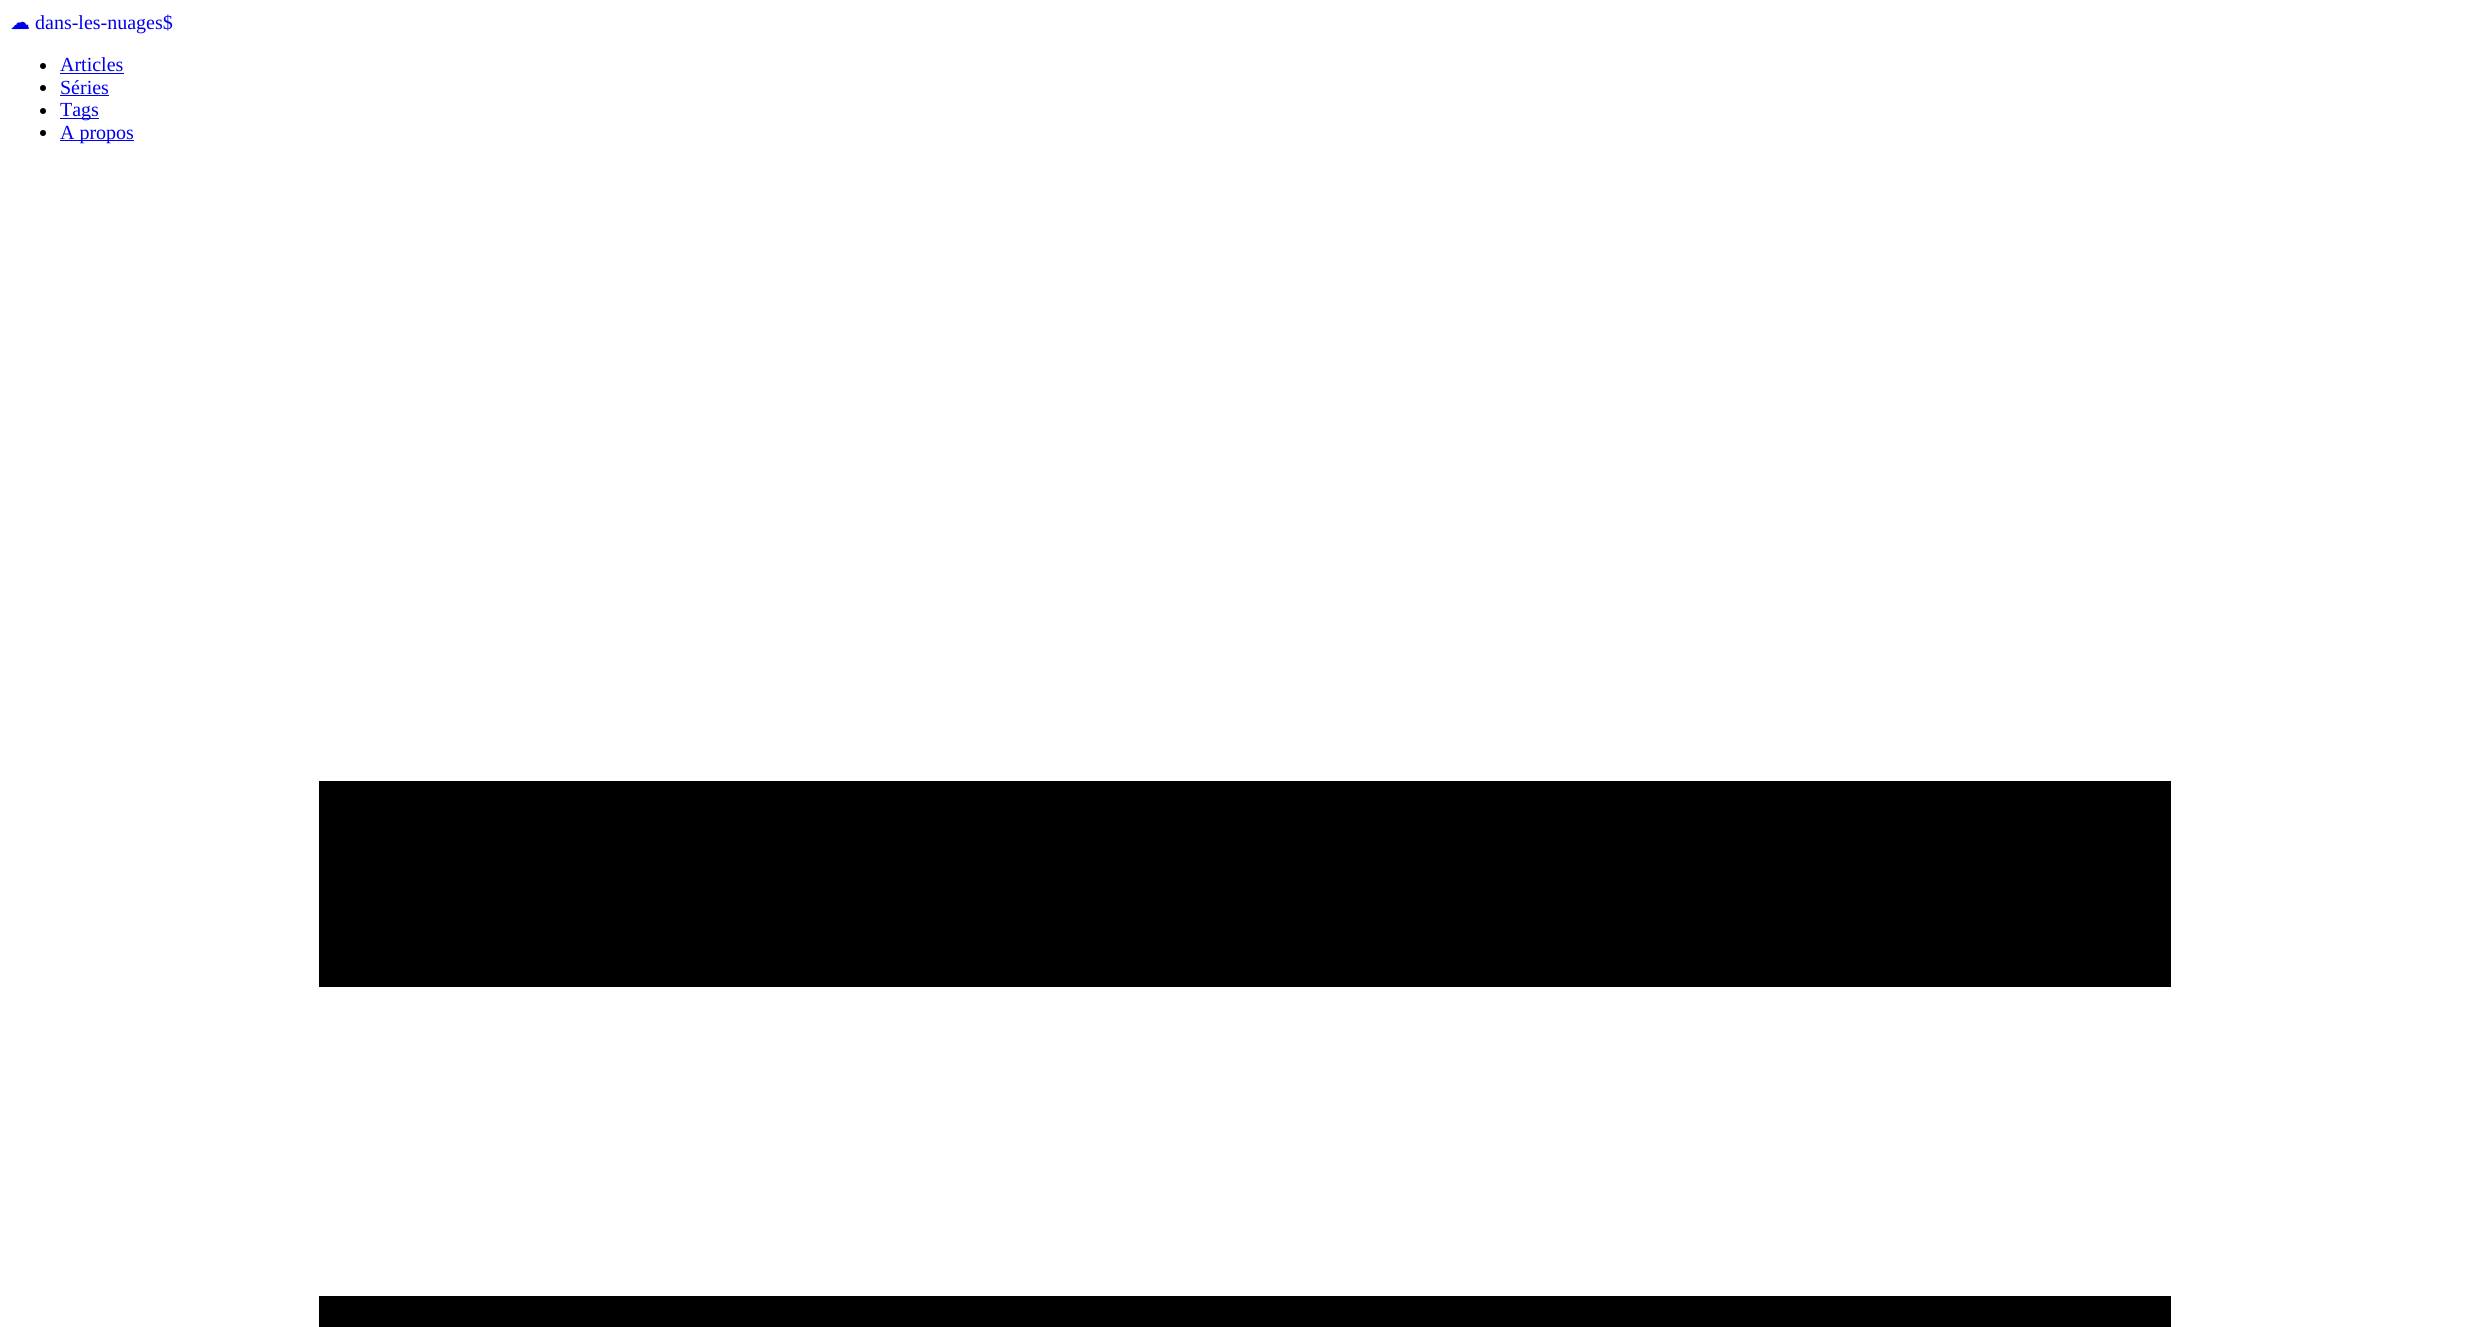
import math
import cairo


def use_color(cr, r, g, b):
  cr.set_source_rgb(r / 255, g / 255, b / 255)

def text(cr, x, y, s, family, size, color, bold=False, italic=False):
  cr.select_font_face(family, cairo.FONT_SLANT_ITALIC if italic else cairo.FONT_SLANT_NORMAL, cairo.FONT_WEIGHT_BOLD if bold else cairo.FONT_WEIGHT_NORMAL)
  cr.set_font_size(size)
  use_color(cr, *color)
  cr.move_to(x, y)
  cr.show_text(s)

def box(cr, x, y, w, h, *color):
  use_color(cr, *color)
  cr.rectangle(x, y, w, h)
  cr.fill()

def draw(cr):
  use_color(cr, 255, 255, 255)
  cr.paint()
  use_color(cr, 0, 0, 0)
  cr.arc(43, 66, 3, 0, 2 * math.pi)
  cr.fill()
  box(cr, 60, 73, 64, 1, 0, 0, 238)
  use_color(cr, 0, 0, 0)
  cr.arc(43, 88, 3, 0, 2 * math.pi)
  cr.fill()
  box(cr, 60, 95, 49, 1, 0, 0, 238)
  use_color(cr, 0, 0, 0)
  cr.arc(43, 111, 3, 0, 2 * math.pi)
  cr.fill()
  box(cr, 60, 118, 39, 1, 0, 0, 238)
  use_color(cr, 0, 0, 0)
  cr.arc(43, 133, 3, 0, 2 * math.pi)
  cr.fill()
  box(cr, 60, 140, 74, 1, 0, 0, 238)
  use_color(cr, 0, 0, 0)
  cr.new_path()
  cr.move_to(319, 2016)
  cr.line_to(2171, 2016)
  cr.line_to(2171, 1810)
  cr.line_to(319, 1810)
  cr.close_path()
  cr.move_to(319, 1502)
  cr.line_to(2171, 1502)
  cr.line_to(2171, 1296)
  cr.line_to(319, 1296)
  cr.close_path()
  cr.move_to(319, 781)
  cr.line_to(319, 987)
  cr.line_to(2171, 987)
  cr.line_to(2171, 781)
  cr.close_path()
  cr.fill()
  text(cr, 10, 29, "☁", "DejaVu Sans", 20, (0, 0, 238))
  text(cr, 35, 29, "dans-les-nuages$", "Liberation Serif", 20, (0, 0, 238))
  text(cr, 60, 71, "Articles", "Liberation Serif", 20, (0, 0, 238))
  text(cr, 60, 94, "Séries", "Liberation Serif", 20, (0, 0, 238))
  text(cr, 60, 116, "Tags", "Liberation Serif", 20, (0, 0, 238))
  text(cr, 60, 139, "A propos", "Liberation Serif", 20, (0, 0, 238))


surface = cairo.ImageSurface(cairo.FORMAT_RGB24, 2490, 1327)
cr = cairo.Context(surface)
options = cairo.FontOptions()
options.set_hint_metrics(cairo.HINT_METRICS_OFF)
options.set_hint_style(cairo.HINT_STYLE_NONE)
cr.set_font_options(options)
cr.set_miter_limit(4)
draw(cr)
surface.write_to_png("out.png")
